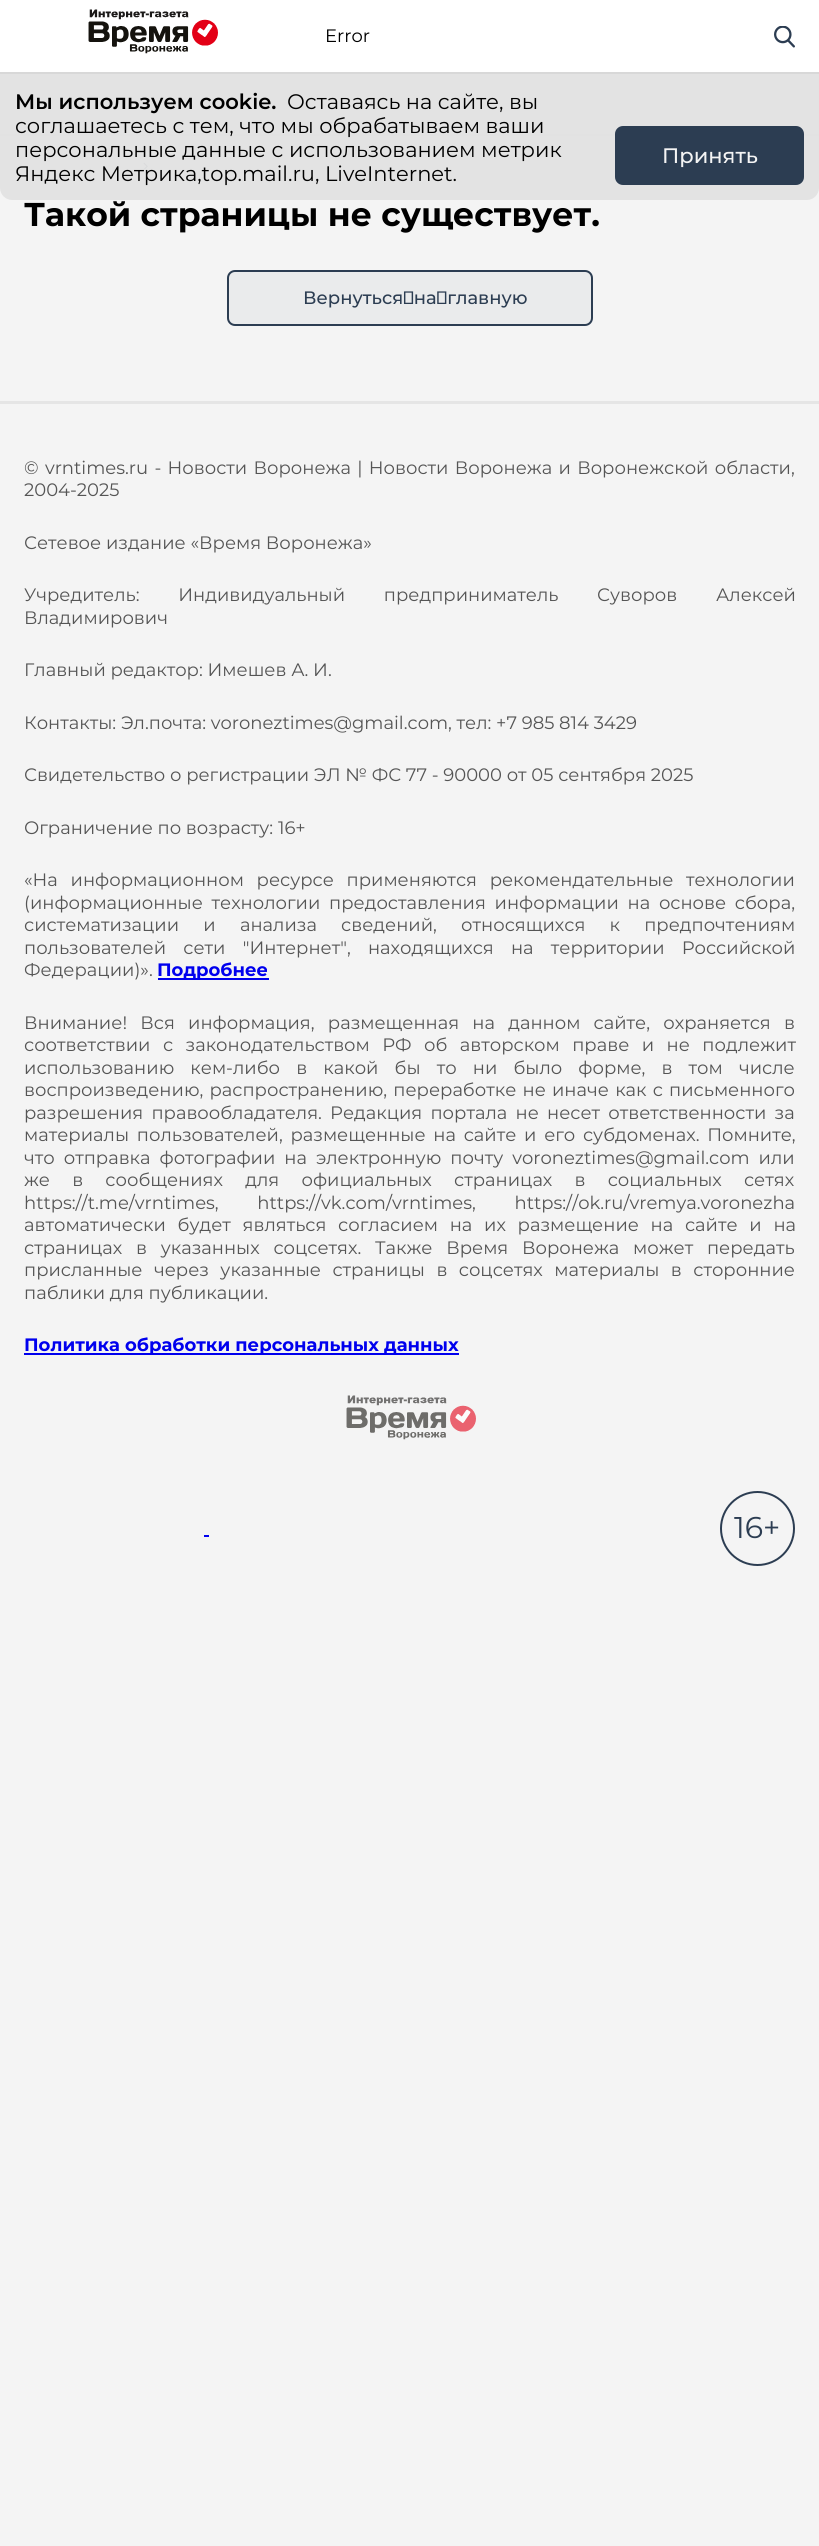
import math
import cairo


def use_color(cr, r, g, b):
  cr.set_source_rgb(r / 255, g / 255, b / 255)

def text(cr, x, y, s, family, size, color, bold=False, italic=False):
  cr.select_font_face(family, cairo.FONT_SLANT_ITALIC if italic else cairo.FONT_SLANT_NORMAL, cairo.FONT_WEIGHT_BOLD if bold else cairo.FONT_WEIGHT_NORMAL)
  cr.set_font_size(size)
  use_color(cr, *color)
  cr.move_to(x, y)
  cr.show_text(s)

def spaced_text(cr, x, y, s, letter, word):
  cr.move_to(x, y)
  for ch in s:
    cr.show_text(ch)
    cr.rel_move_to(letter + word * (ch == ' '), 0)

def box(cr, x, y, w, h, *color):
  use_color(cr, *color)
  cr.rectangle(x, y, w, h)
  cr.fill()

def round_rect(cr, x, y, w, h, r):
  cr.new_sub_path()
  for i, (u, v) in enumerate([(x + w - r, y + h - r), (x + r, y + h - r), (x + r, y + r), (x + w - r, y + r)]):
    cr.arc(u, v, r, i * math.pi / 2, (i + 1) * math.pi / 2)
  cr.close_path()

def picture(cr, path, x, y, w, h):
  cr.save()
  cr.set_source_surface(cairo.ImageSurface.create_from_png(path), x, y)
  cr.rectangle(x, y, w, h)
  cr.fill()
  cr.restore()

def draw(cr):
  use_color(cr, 244, 244, 244)
  cr.paint()
  box(cr, 0, 0, 819, 72, 255, 255, 255)
  box(cr, 0, 72, 819, 2, 216, 216, 216)
  picture(cr, "img_01.png", 88, 9, 130, 45)
  picture(cr, "img_02.png", 774, 26, 21, 22)
  box(cr, 0, 134, 819, 2, 216, 216, 216)
  gradient = cairo.LinearGradient(714, 104, 819, 104)
  gradient.add_color_stop_rgba(0, 0.965, 0.965, 0.965, 0)
  gradient.add_color_stop_rgba(0.43, 0.965, 0.965, 0.965, 0.7)
  gradient.add_color_stop_rgba(0.85, 0.906, 0.914, 0.922, 1)
  gradient.add_color_stop_rgba(1, 0.906, 0.914, 0.922, 1)
  cr.set_source(gradient)
  cr.rectangle(775, 74, 44, 60)
  cr.fill()
  picture(cr, "img_03.png", 143, 162, 5, 8)
  cr.set_source_rgba(0.89, 0.89, 0.89, 0.95)
  cr.new_path()
  cr.move_to(0, 74)
  cr.line_to(819, 74)
  cr.line_to(819, 188)
  cr.curve_to(819, 194.5, 813.5, 200, 807, 200)
  cr.line_to(12, 200)
  cr.curve_to(5.5, 200, 0, 194.5, 0, 188)
  cr.close_path()
  cr.fill()
  use_color(cr, 44, 61, 82)
  round_rect(cr, 616, 127, 187, 57, 7)
  cr.fill_preserve()
  cr.stroke()
  use_color(cr, 234, 235, 236)
  round_rect(cr, 228, 271, 364, 54, 7)
  cr.fill_preserve()
  use_color(cr, 44, 61, 82)
  cr.stroke()
  box(cr, 0, 401, 819, 3, 229, 229, 229)
  box(cr, 158, 978, 111, 2, 0, 0, 238)
  box(cr, 24, 1353, 435, 2, 0, 0, 238)
  picture(cr, "img_04.png", 346, 1395, 130, 45)
  box(cr, 204, 1535, 5, 2, 0, 0, 238)
  cr.arc(757.5, 1528.5, 36.5, 0, 2 * math.pi)
  use_color(cr, 44, 61, 82)
  cr.stroke()
  text(cr, 325, 42, "Error", "Montserrat", 18, (0, 0, 0))
  text(cr, 15, 109, "Мы используем cookie.", "Montserrat SemiBold", 21, (0, 0, 0))
  text(cr, 287, 109, "Оставаясь на сайте, вы", "Montserrat", 21, (0, 0, 0))
  text(cr, 15, 133, "соглашаетесь с тем, что мы обрабатываем ваши", "Montserrat", 21, (0, 0, 0))
  text(cr, 15, 157, "персональные данные с использованием метрик", "Montserrat", 21, (0, 0, 0))
  text(cr, 15, 181, "Яндекс Метрика,top.mail.ru, LiveInternet.", "Montserrat", 21, (0, 0, 0))
  text(cr, 662, 163, "Принять", "Montserrat Medium", 21, (244, 244, 244))
  text(cr, 24, 226, "Такой страницы не существует.", "Montserrat", 33, (0, 0, 0), bold=True)
  text(cr, 303, 304, "Вернуться на главную", "Montserrat Medium", 18, (44, 61, 82))
  cr.select_font_face("Montserrat")
  use_color(cr, 85, 85, 85)
  spaced_text(cr, 24, 474, "© vrntimes.ru - Новости Воронежа | Новости Воронежа и Воронежской области,", 0, 1.6)
  text(cr, 24, 496, "2004-2025", "Montserrat", 18, (85, 85, 85))
  text(cr, 24, 549, "Сетевое издание «Время Воронежа»", "Montserrat", 18, (85, 85, 85))
  spaced_text(cr, 24, 601, "Учредитель: Индивидуальный предприниматель Суворов Алексей", 0, 34)
  text(cr, 24, 624, "Владимирович", "Montserrat", 18, (85, 85, 85))
  text(cr, 24, 676, "Главный редактор: Имешев А. И.", "Montserrat", 18, (85, 85, 85))
  text(cr, 24, 729, "Контакты: Эл.почта: voroneztimes@gmail.com, тел: +7 985 814 3429", "Montserrat", 18, (85, 85, 85))
  text(cr, 24, 781, "Свидетельство о регистрации ЭЛ № ФС 77 - 90000 от 05 сентября 2025", "Montserrat", 18, (85, 85, 85))
  text(cr, 24, 834, "Ограничение по возрасту: 16+", "Montserrat", 18, (85, 85, 85))
  spaced_text(cr, 24, 886, "«На информационном ресурсе применяются рекомендательные технологии", 0, 8)
  spaced_text(cr, 24, 909, "(информационные технологии предоставления информации на основе сбора,", 0, 4)
  spaced_text(cr, 24, 931, "систематизации и анализа сведений, относящихся к предпочтениям", 0, 19.5)
  spaced_text(cr, 24, 954, "пользователей сети \"Интернет\", находящихся на территории Российской", 0, 12.5)
  text(cr, 24, 976, "Федерации)».", "Montserrat", 18, (85, 85, 85))
  text(cr, 157, 976, "Подробнее", "Montserrat", 18, (0, 0, 238), bold=True)
  cr.select_font_face("Montserrat")
  use_color(cr, 85, 85, 85)
  spaced_text(cr, 24, 1029, "Внимание! Вся информация, размещенная на данном сайте, охраняется в", 0, 8.5)
  spaced_text(cr, 24, 1051, "соответствии с законодательством РФ об авторском праве и не подлежит", 0, 7.75)
  spaced_text(cr, 24, 1074, "использованию кем-либо в какой бы то ни было форме, в том числе", 0, 11.4)
  spaced_text(cr, 24, 1096, "воспроизведению, распространению, переработке не иначе как с письменного", 0, 1.5)
  spaced_text(cr, 24, 1119, "разрешения правообладателя. Редакция портала не несет ответственности за", 0, 3.5)
  spaced_text(cr, 24, 1141, "материалы пользователей, размещенные на сайте и его субдоменах. Помните,", 0, 3)
  spaced_text(cr, 24, 1164, "что отправка фотографии на электронную почту voroneztimes@gmail.com или", 0, 4.25)
  spaced_text(cr, 24, 1186, "же в сообщениях для официальных страницах в социальных сетях", 0, 17.5)
  spaced_text(cr, 24, 1209, "https://t.me/vrntimes, https://vk.com/vrntimes, https://ok.ru/vremya.voronezha", 0, 34)
  spaced_text(cr, 24, 1231, "автоматически будет являться согласием на их размещение на сайте и на", 0, 7)
  spaced_text(cr, 24, 1254, "страницах в указанных соцсетях. Также Время Воронежа может передать", 0, 9)
  spaced_text(cr, 24, 1276, "присланные через указанные страницы в соцсетях материалы в сторонние", 0, 6.75)
  text(cr, 24, 1299, "паблики для публикации.", "Montserrat", 18, (85, 85, 85))
  text(cr, 24, 1351, "Политика обработки персональных данных", "Montserrat", 18, (0, 0, 238), bold=True)
  text(cr, 734, 1538, "16+", "Montserrat", 30, (44, 61, 82))


surface = cairo.ImageSurface(cairo.FORMAT_RGB24, 819, 2546)
cr = cairo.Context(surface)
options = cairo.FontOptions()
options.set_hint_metrics(cairo.HINT_METRICS_OFF)
options.set_hint_style(cairo.HINT_STYLE_NONE)
cr.set_font_options(options)
cr.set_miter_limit(4)
draw(cr)
surface.write_to_png("out.png")
